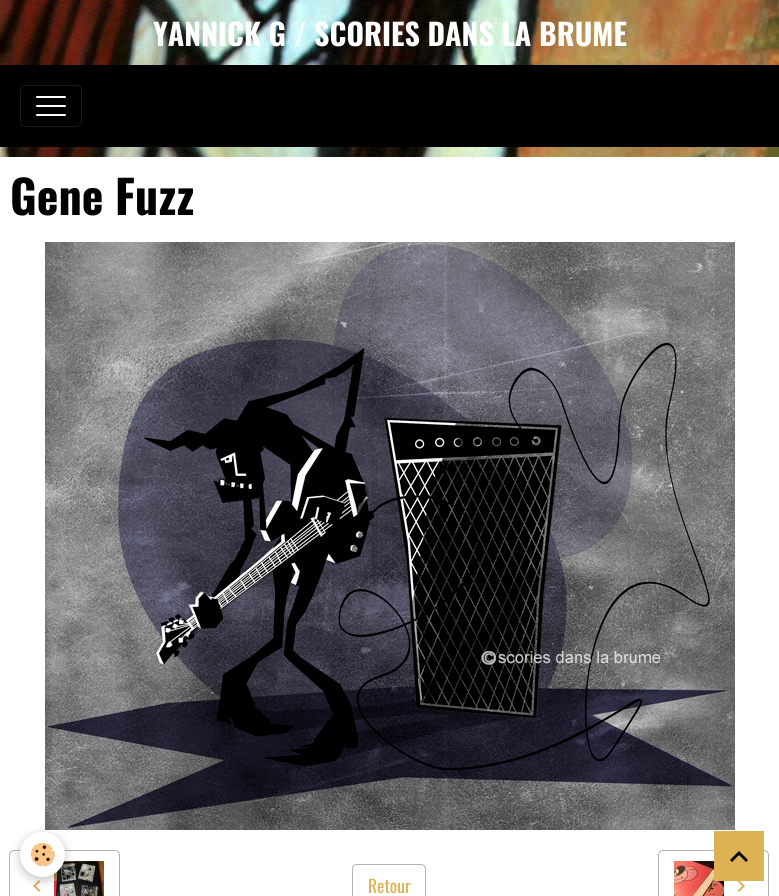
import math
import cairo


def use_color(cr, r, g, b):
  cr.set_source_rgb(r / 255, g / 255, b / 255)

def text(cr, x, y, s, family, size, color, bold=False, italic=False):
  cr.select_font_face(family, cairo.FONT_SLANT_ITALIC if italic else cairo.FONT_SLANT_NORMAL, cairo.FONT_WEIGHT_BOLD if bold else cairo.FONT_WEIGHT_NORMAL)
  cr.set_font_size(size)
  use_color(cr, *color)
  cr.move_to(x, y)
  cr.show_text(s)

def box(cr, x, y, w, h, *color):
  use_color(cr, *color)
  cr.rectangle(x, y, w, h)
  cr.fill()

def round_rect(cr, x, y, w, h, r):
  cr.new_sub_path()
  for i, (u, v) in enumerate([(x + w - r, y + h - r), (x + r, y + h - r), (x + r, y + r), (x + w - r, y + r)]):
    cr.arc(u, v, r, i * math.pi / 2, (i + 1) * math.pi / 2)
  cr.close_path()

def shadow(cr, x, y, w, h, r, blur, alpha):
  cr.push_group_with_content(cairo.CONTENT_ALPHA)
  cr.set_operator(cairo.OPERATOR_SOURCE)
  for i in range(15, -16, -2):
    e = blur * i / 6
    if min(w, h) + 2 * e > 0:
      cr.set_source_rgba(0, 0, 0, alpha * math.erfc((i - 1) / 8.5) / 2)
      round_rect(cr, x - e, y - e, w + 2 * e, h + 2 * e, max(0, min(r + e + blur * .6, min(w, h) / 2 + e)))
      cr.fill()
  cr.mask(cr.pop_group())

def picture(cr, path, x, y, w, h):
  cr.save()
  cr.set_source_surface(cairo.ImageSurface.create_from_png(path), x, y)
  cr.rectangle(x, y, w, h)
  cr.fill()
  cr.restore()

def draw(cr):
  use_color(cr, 255, 255, 255)
  cr.paint()
  picture(cr, "img_01.png", 0, 0, 779, 157)
  box(cr, 0, 65, 779, 82, 0, 0, 0)
  round_rect(cr, 20.5, 85.5, 61, 41, 4.5)
  use_color(cr, 26, 26, 26)
  cr.set_line_width(1)
  cr.stroke()
  use_color(cr, 255, 255, 255)
  round_rect(cr, 36, 96, 30, 2, 1)
  cr.fill()
  round_rect(cr, 36, 105, 30, 2, 1)
  cr.fill()
  round_rect(cr, 36, 114, 30, 2, 1)
  cr.fill()
  picture(cr, "img_02.png", 45, 242, 690, 588)
  round_rect(cr, 9.5, 850.5, 110, 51, 4.5)
  use_color(cr, 179, 179, 179)
  cr.stroke()
  picture(cr, "img_03.png", 33, 880, 8, 12)
  picture(cr, "img_04.png", 54, 861, 50, 35)
  round_rect(cr, 352.5, 864.5, 73, 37, 4.5)
  cr.stroke()
  round_rect(cr, 658.5, 850.5, 110, 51, 4.5)
  cr.stroke()
  picture(cr, "img_05.png", 674, 861, 50, 35)
  picture(cr, "img_06.png", 737, 881, 8, 11)
  use_color(cr, 0, 0, 0)
  shadow(cr, 20, 835, 45, 45, 22.5, 5, 0.24)
  use_color(cr, 255, 255, 255)
  cr.arc(42.5, 854.5, 22.5, 0, 2 * math.pi)
  cr.fill()
  picture(cr, "img_07.png", 30, 842, 25, 25)
  box(cr, 714, 831, 50, 50, 220, 178, 83)
  use_color(cr, 0, 0, 0)
  cr.new_path()
  cr.move_to(739, 851)
  cr.line_to(748, 860)
  cr.line_to(746, 862)
  cr.line_to(739, 855)
  cr.line_to(732, 862)
  cr.line_to(730, 860)
  cr.close_path()
  cr.fill()
  text(cr, 153, 46, "YANNICK G / SCORIES DANS LA BRUME", "Oswald", 30, (255, 255, 255), bold=True)
  text(cr, 10, 215, "Gene Fuzz", "Oswald", 46, (0, 0, 0), bold=True)
  text(cr, 368, 893, "Retour", "Oswald", 17.5, (220, 178, 83))


surface = cairo.ImageSurface(cairo.FORMAT_RGB24, 779, 896)
cr = cairo.Context(surface)
options = cairo.FontOptions()
options.set_hint_metrics(cairo.HINT_METRICS_OFF)
options.set_hint_style(cairo.HINT_STYLE_NONE)
cr.set_font_options(options)
cr.set_miter_limit(4)
draw(cr)
surface.write_to_png("out.png")
